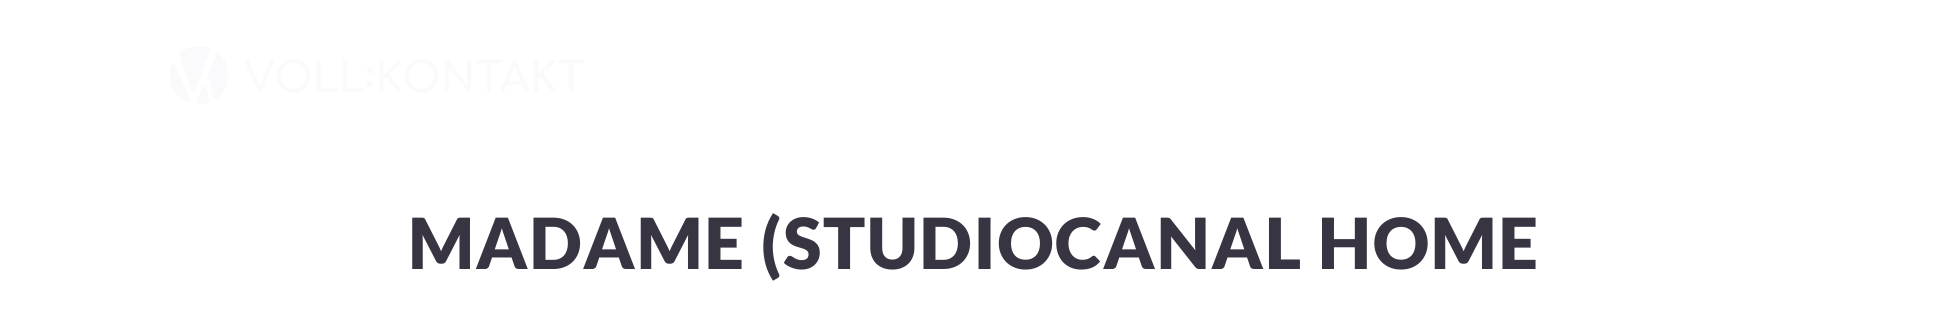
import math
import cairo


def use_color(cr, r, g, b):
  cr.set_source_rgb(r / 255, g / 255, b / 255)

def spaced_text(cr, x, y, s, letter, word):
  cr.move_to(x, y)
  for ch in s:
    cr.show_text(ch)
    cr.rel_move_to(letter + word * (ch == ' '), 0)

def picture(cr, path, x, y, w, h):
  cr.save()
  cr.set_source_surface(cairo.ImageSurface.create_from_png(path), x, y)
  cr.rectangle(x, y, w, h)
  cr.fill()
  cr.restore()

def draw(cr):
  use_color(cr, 255, 255, 255)
  cr.paint()
  picture(cr, "img_01.png", 170, 46, 414, 58)
  cr.select_font_face("Lato Black")
  cr.set_font_size(70.5)
  use_color(cr, 56, 52, 66)
  spaced_text(cr, 408, 269, "MADAME (STUDIOCANAL HOME", 1.5, 0)


surface = cairo.ImageSurface(cairo.FORMAT_RGB24, 1948, 333)
cr = cairo.Context(surface)
options = cairo.FontOptions()
options.set_hint_metrics(cairo.HINT_METRICS_OFF)
options.set_hint_style(cairo.HINT_STYLE_NONE)
cr.set_font_options(options)
cr.set_miter_limit(4)
draw(cr)
surface.write_to_png("out.png")
